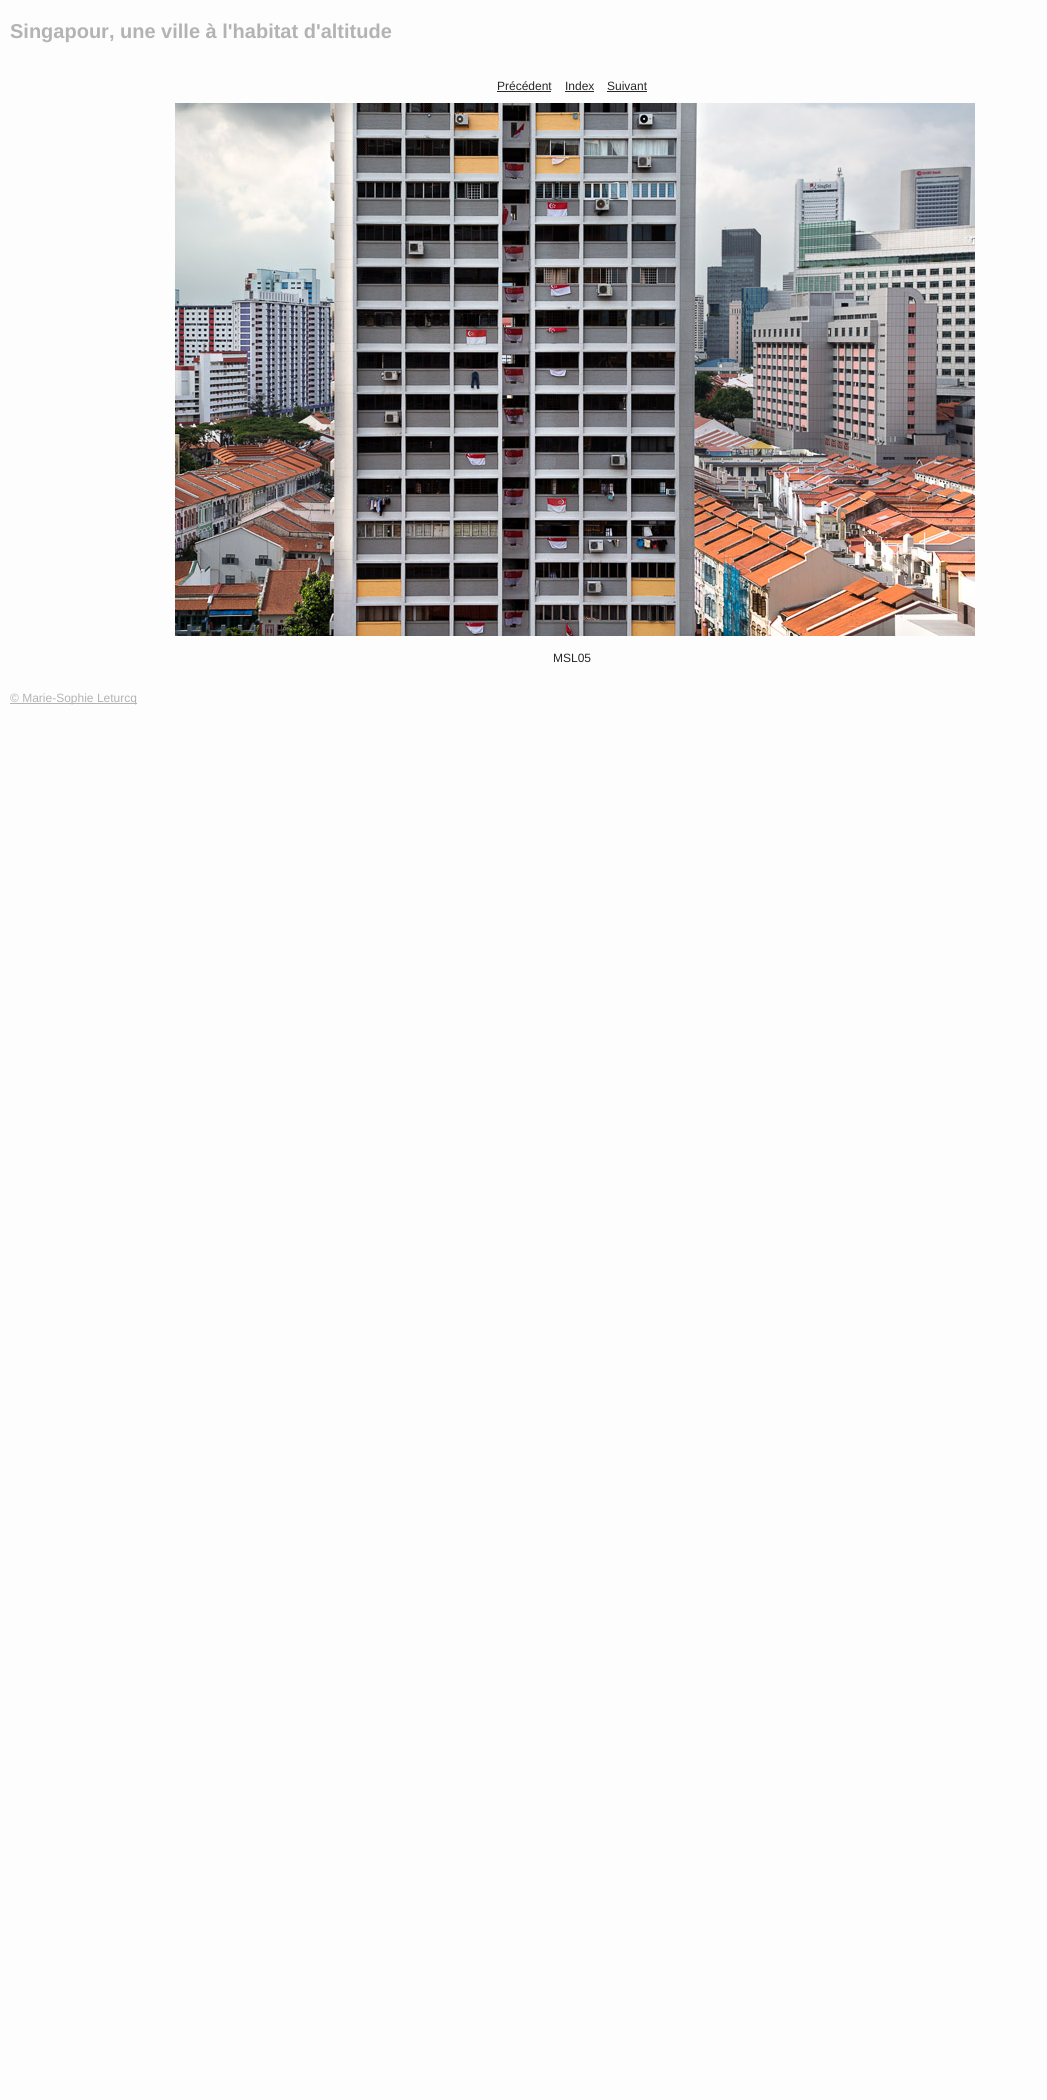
import math
import cairo


def use_color(cr, r, g, b):
  cr.set_source_rgb(r / 255, g / 255, b / 255)

def text(cr, x, y, s, family, size, color, bold=False, italic=False):
  cr.select_font_face(family, cairo.FONT_SLANT_ITALIC if italic else cairo.FONT_SLANT_NORMAL, cairo.FONT_WEIGHT_BOLD if bold else cairo.FONT_WEIGHT_NORMAL)
  cr.set_font_size(size)
  use_color(cr, *color)
  cr.move_to(x, y)
  cr.show_text(s)

def box(cr, x, y, w, h, *color):
  use_color(cr, *color)
  cr.rectangle(x, y, w, h)
  cr.fill()

def picture(cr, path, x, y, w, h):
  cr.save()
  cr.set_source_surface(cairo.ImageSurface.create_from_png(path), x, y)
  cr.rectangle(x, y, w, h)
  cr.fill()
  cr.restore()

def draw(cr):
  use_color(cr, 253, 253, 253)
  cr.paint()
  box(cr, 497, 91, 54, 1, 40, 40, 40)
  box(cr, 565, 91, 29, 1, 40, 40, 40)
  box(cr, 607, 91, 40, 1, 40, 40, 40)
  picture(cr, "img_01.png", 175, 103, 800, 533)
  box(cr, 10, 703, 127, 1, 179, 179, 179)
  text(cr, 10, 38, "Singapour, une ville à l'habitat d'altitude", "Liberation Sans", 20, (179, 179, 179), bold=True)
  text(cr, 497, 90, "Précédent", "Liberation Sans", 12, (40, 40, 40))
  text(cr, 565, 90, "Index", "Liberation Sans", 12, (40, 40, 40))
  text(cr, 607, 90, "Suivant", "Liberation Sans", 12, (40, 40, 40))
  text(cr, 553, 662, "MSL05", "Liberation Sans", 12, (40, 40, 40))
  text(cr, 10, 702, "© Marie-Sophie Leturcq", "Liberation Sans", 12, (179, 179, 179))


surface = cairo.ImageSurface(cairo.FORMAT_RGB24, 1047, 2100)
cr = cairo.Context(surface)
options = cairo.FontOptions()
options.set_hint_metrics(cairo.HINT_METRICS_OFF)
options.set_hint_style(cairo.HINT_STYLE_NONE)
cr.set_font_options(options)
cr.set_miter_limit(4)
draw(cr)
surface.write_to_png("out.png")
